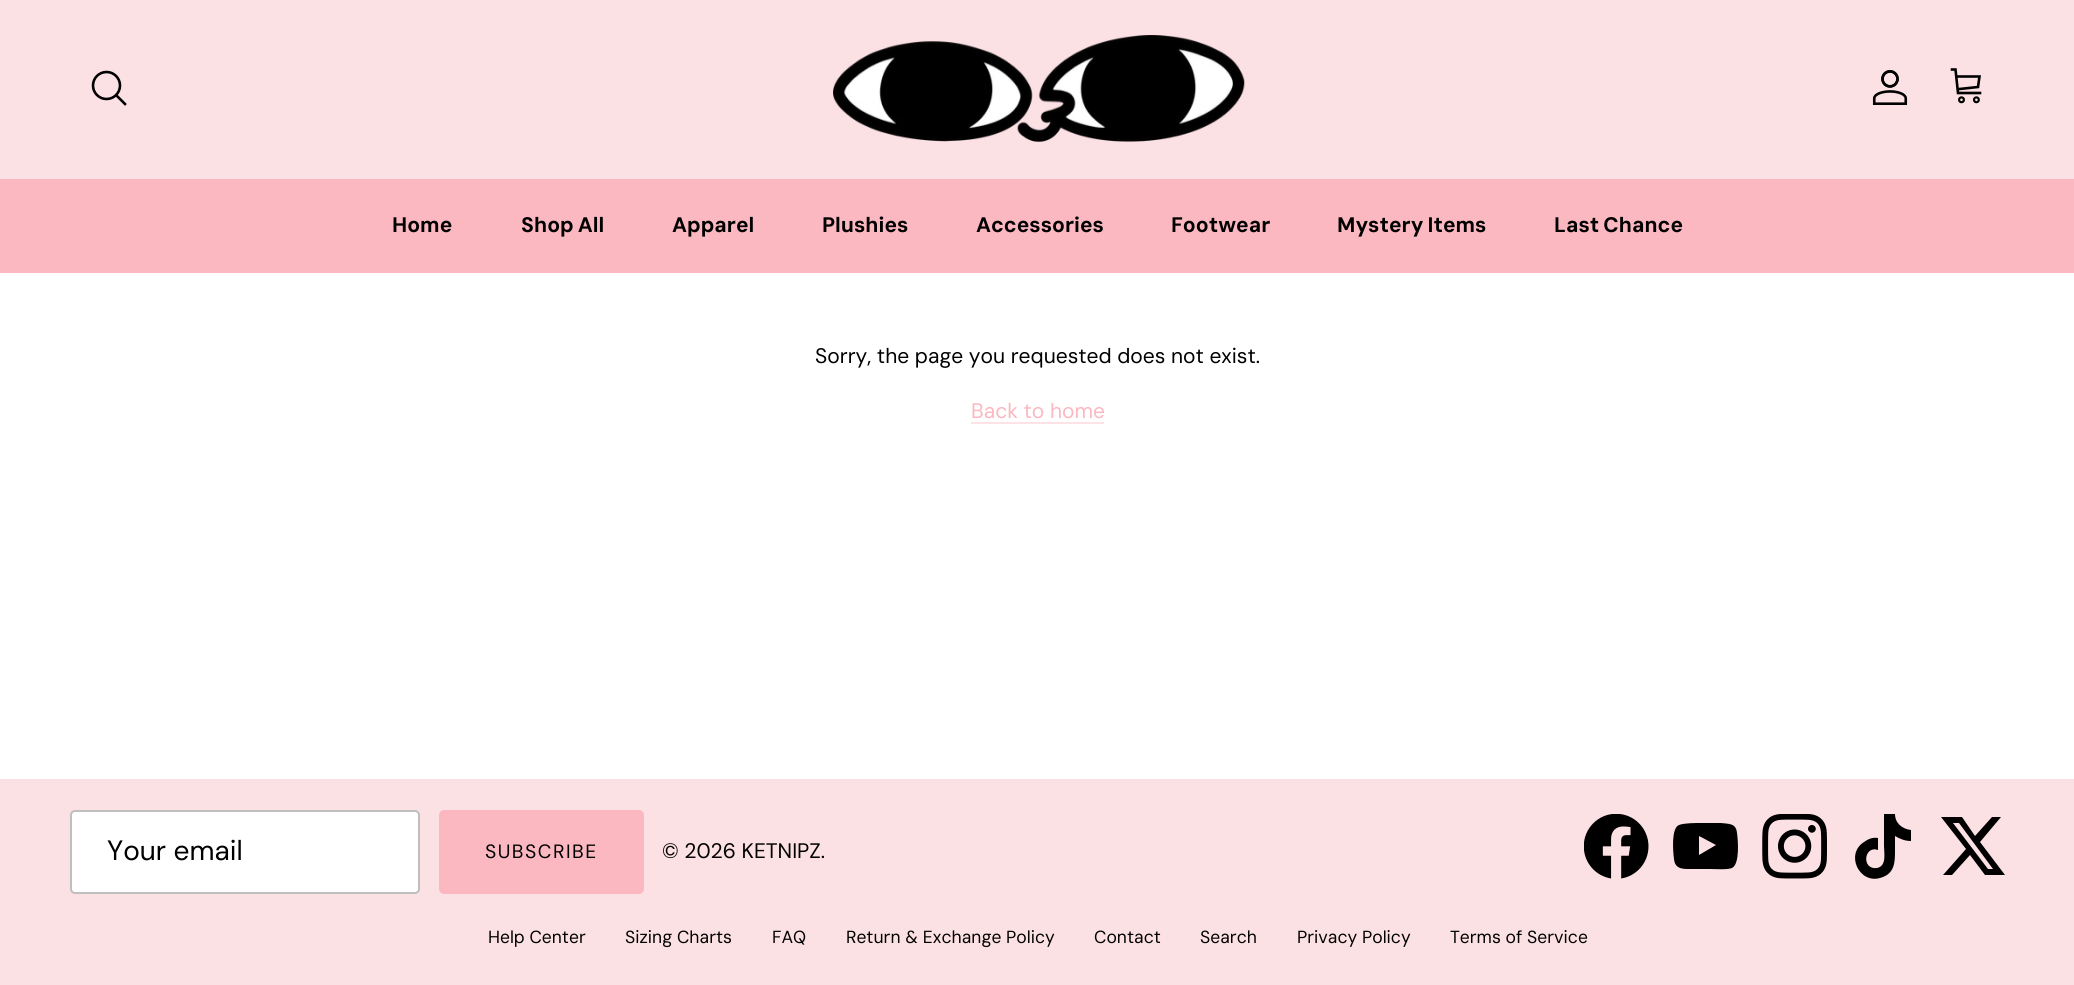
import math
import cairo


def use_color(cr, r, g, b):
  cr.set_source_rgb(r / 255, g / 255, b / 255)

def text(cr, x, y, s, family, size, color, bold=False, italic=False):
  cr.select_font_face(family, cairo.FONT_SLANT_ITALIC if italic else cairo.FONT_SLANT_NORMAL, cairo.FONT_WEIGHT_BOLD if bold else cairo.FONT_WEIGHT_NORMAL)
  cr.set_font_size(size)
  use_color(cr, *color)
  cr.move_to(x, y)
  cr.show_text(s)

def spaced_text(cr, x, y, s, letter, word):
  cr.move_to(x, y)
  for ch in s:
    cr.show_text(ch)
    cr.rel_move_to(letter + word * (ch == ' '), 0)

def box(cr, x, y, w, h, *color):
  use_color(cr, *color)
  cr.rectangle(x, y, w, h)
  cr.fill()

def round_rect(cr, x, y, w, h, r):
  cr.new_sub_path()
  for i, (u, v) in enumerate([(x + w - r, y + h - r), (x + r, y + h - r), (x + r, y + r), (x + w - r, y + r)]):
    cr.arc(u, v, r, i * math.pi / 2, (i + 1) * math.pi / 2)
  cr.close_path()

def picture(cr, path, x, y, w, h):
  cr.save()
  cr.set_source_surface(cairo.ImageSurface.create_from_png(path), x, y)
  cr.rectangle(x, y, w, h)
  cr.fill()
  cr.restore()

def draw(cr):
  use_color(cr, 255, 255, 255)
  cr.paint()
  box(cr, 0, 0, 2074, 179, 252, 225, 228)
  cr.arc(106.5, 85.5, 13.5, 0, 2 * math.pi)
  use_color(cr, 0, 0, 0)
  cr.set_line_width(2.6)
  cr.stroke()
  cr.new_path()
  cr.move_to(117, 96)
  cr.line_to(125, 104)
  cr.set_line_cap(cairo.LINE_CAP_SQUARE)
  cr.stroke()
  picture(cr, "img_01.png", 833, 35, 412, 107)
  picture(cr, "img_02.png", 1872, 70, 36, 35)
  cr.new_path()
  cr.move_to(1952, 69.5)
  cr.line_to(1955.5, 69.5)
  cr.line_to(1958, 93)
  cr.line_to(1980, 93)
  cr.move_to(1957, 76.5)
  cr.line_to(1979.5, 76.5)
  cr.line_to(1978, 87)
  cr.line_to(1959.5, 89)
  cr.stroke()
  cr.arc(1961.5, 99.8, 2.4, 0, 2 * math.pi)
  cr.set_line_width(2.2)
  cr.set_line_cap(cairo.LINE_CAP_BUTT)
  cr.stroke()
  cr.arc(1976.4, 99.8, 2.4, 0, 2 * math.pi)
  cr.stroke()
  box(cr, 0, 179, 2074, 94, 251, 184, 192)
  box(cr, 971, 422, 133, 2, 253, 227, 230)
  box(cr, 0, 779, 2074, 206, 252, 225, 228)
  use_color(cr, 255, 255, 255)
  round_rect(cr, 71, 811, 348, 82, 4)
  cr.fill_preserve()
  use_color(cr, 191, 191, 191)
  cr.set_line_width(2)
  cr.stroke()
  use_color(cr, 251, 184, 192)
  round_rect(cr, 440, 811, 203, 82, 4)
  cr.fill_preserve()
  cr.stroke()
  picture(cr, "img_03.png", 1584, 814, 65, 65)
  use_color(cr, 0, 0, 0)
  cr.set_fill_rule(cairo.FILL_RULE_EVEN_ODD)
  cr.new_path()
  cr.move_to(1699, 855)
  cr.line_to(1699, 836)
  cr.line_to(1716, 845)
  cr.close_path()
  cr.move_to(1737, 833)
  cr.curve_to(1736, 823, 1729, 824, 1721, 823)
  cr.line_to(1701, 823)
  cr.curve_to(1695, 823, 1684, 823, 1679, 825)
  cr.curve_to(1671, 828, 1673, 852, 1674, 859)
  cr.curve_to(1675, 870, 1684, 869, 1693, 869)
  cr.line_to(1710, 869)
  cr.curve_to(1715, 869, 1727, 870, 1732, 868)
  cr.curve_to(1740, 864, 1738, 840, 1737, 833)
  cr.close_path()
  cr.fill()
  picture(cr, "img_04.png", 1762, 814, 65, 65)
  cr.set_fill_rule(cairo.FILL_RULE_WINDING)
  cr.new_path()
  cr.move_to(1884, 814)
  cr.line_to(1895, 814)
  cr.curve_to(1895, 823, 1902, 829, 1911, 830)
  cr.line_to(1911, 841)
  cr.curve_to(1905, 841, 1900, 839, 1895, 836)
  cr.line_to(1895, 850)
  cr.curve_to(1895, 862, 1895, 874, 1880, 878)
  cr.curve_to(1859, 884, 1845, 854, 1864, 842)
  cr.curve_to(1868, 839, 1873, 837, 1878, 838)
  cr.line_to(1878, 850)
  cr.curve_to(1864, 845, 1861, 870, 1877, 868)
  cr.curve_to(1887, 866, 1884, 853, 1884, 846)
  cr.close_path()
  cr.fill()
  cr.new_path()
  cr.move_to(1992, 817)
  cr.line_to(2001, 817)
  cr.line_to(1980, 842)
  cr.line_to(2005, 875)
  cr.line_to(1985, 875)
  cr.line_to(1970, 855)
  cr.line_to(1952, 875)
  cr.line_to(1943, 875)
  cr.line_to(1966, 849)
  cr.line_to(1941, 817)
  cr.line_to(1962, 817)
  cr.line_to(1975, 836)
  cr.close_path()
  cr.move_to(1988, 869)
  cr.line_to(1993, 869)
  cr.line_to(1959, 823)
  cr.line_to(1953, 823)
  cr.close_path()
  cr.fill()
  text(cr, 392, 232, "Home", "DM Sans", 21, (0, 0, 0), bold=True)
  spaced_text(cr, 521, 232, "Shop All", 0, -1)
  text(cr, 672, 232, "Apparel", "DM Sans", 21, (0, 0, 0), bold=True)
  text(cr, 822, 232, "Plushies", "DM Sans", 21, (0, 0, 0), bold=True)
  text(cr, 976, 232, "Accessories", "DM Sans", 21, (0, 0, 0), bold=True)
  text(cr, 1171, 232, "Footwear", "DM Sans", 21, (0, 0, 0), bold=True)
  spaced_text(cr, 1337, 232, "Mystery Items", 0, -1)
  spaced_text(cr, 1554, 232, "Last Chance", 0, -1)
  text(cr, 815, 363, "Sorry, the page you requested does not exist.", "DM Sans", 21, (0, 0, 0))
  text(cr, 971, 418, "Back to home", "DM Sans", 21, (251, 184, 192))
  text(cr, 107, 860, "Your email", "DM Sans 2", 28, (0, 0, 0))
  cr.select_font_face("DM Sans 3")
  cr.set_font_size(19.25)
  spaced_text(cr, 485, 858, "SUBSCRIBE", 1.5, 0)
  text(cr, 662, 858, "© 2026 KETNIPZ.", "DM Sans", 21, (0, 0, 0))
  text(cr, 488, 943, "Help Center", "DM Sans 3", 17.5, (0, 0, 0))
  text(cr, 625, 943, "Sizing Charts", "DM Sans 3", 17.5, (0, 0, 0))
  text(cr, 772, 943, "FAQ", "DM Sans 3", 17.5, (0, 0, 0))
  text(cr, 846, 943, "Return & Exchange Policy", "DM Sans 3", 17.5, (0, 0, 0))
  text(cr, 1094, 943, "Contact", "DM Sans 3", 17.5, (0, 0, 0))
  text(cr, 1200, 943, "Search", "DM Sans 3", 17.5, (0, 0, 0))
  text(cr, 1297, 943, "Privacy Policy", "DM Sans 3", 17.5, (0, 0, 0))
  text(cr, 1450, 943, "Terms of Service", "DM Sans 3", 17.5, (0, 0, 0))


surface = cairo.ImageSurface(cairo.FORMAT_RGB24, 2074, 985)
cr = cairo.Context(surface)
options = cairo.FontOptions()
options.set_hint_metrics(cairo.HINT_METRICS_OFF)
options.set_hint_style(cairo.HINT_STYLE_NONE)
cr.set_font_options(options)
cr.set_miter_limit(4)
draw(cr)
surface.write_to_png("out.png")
